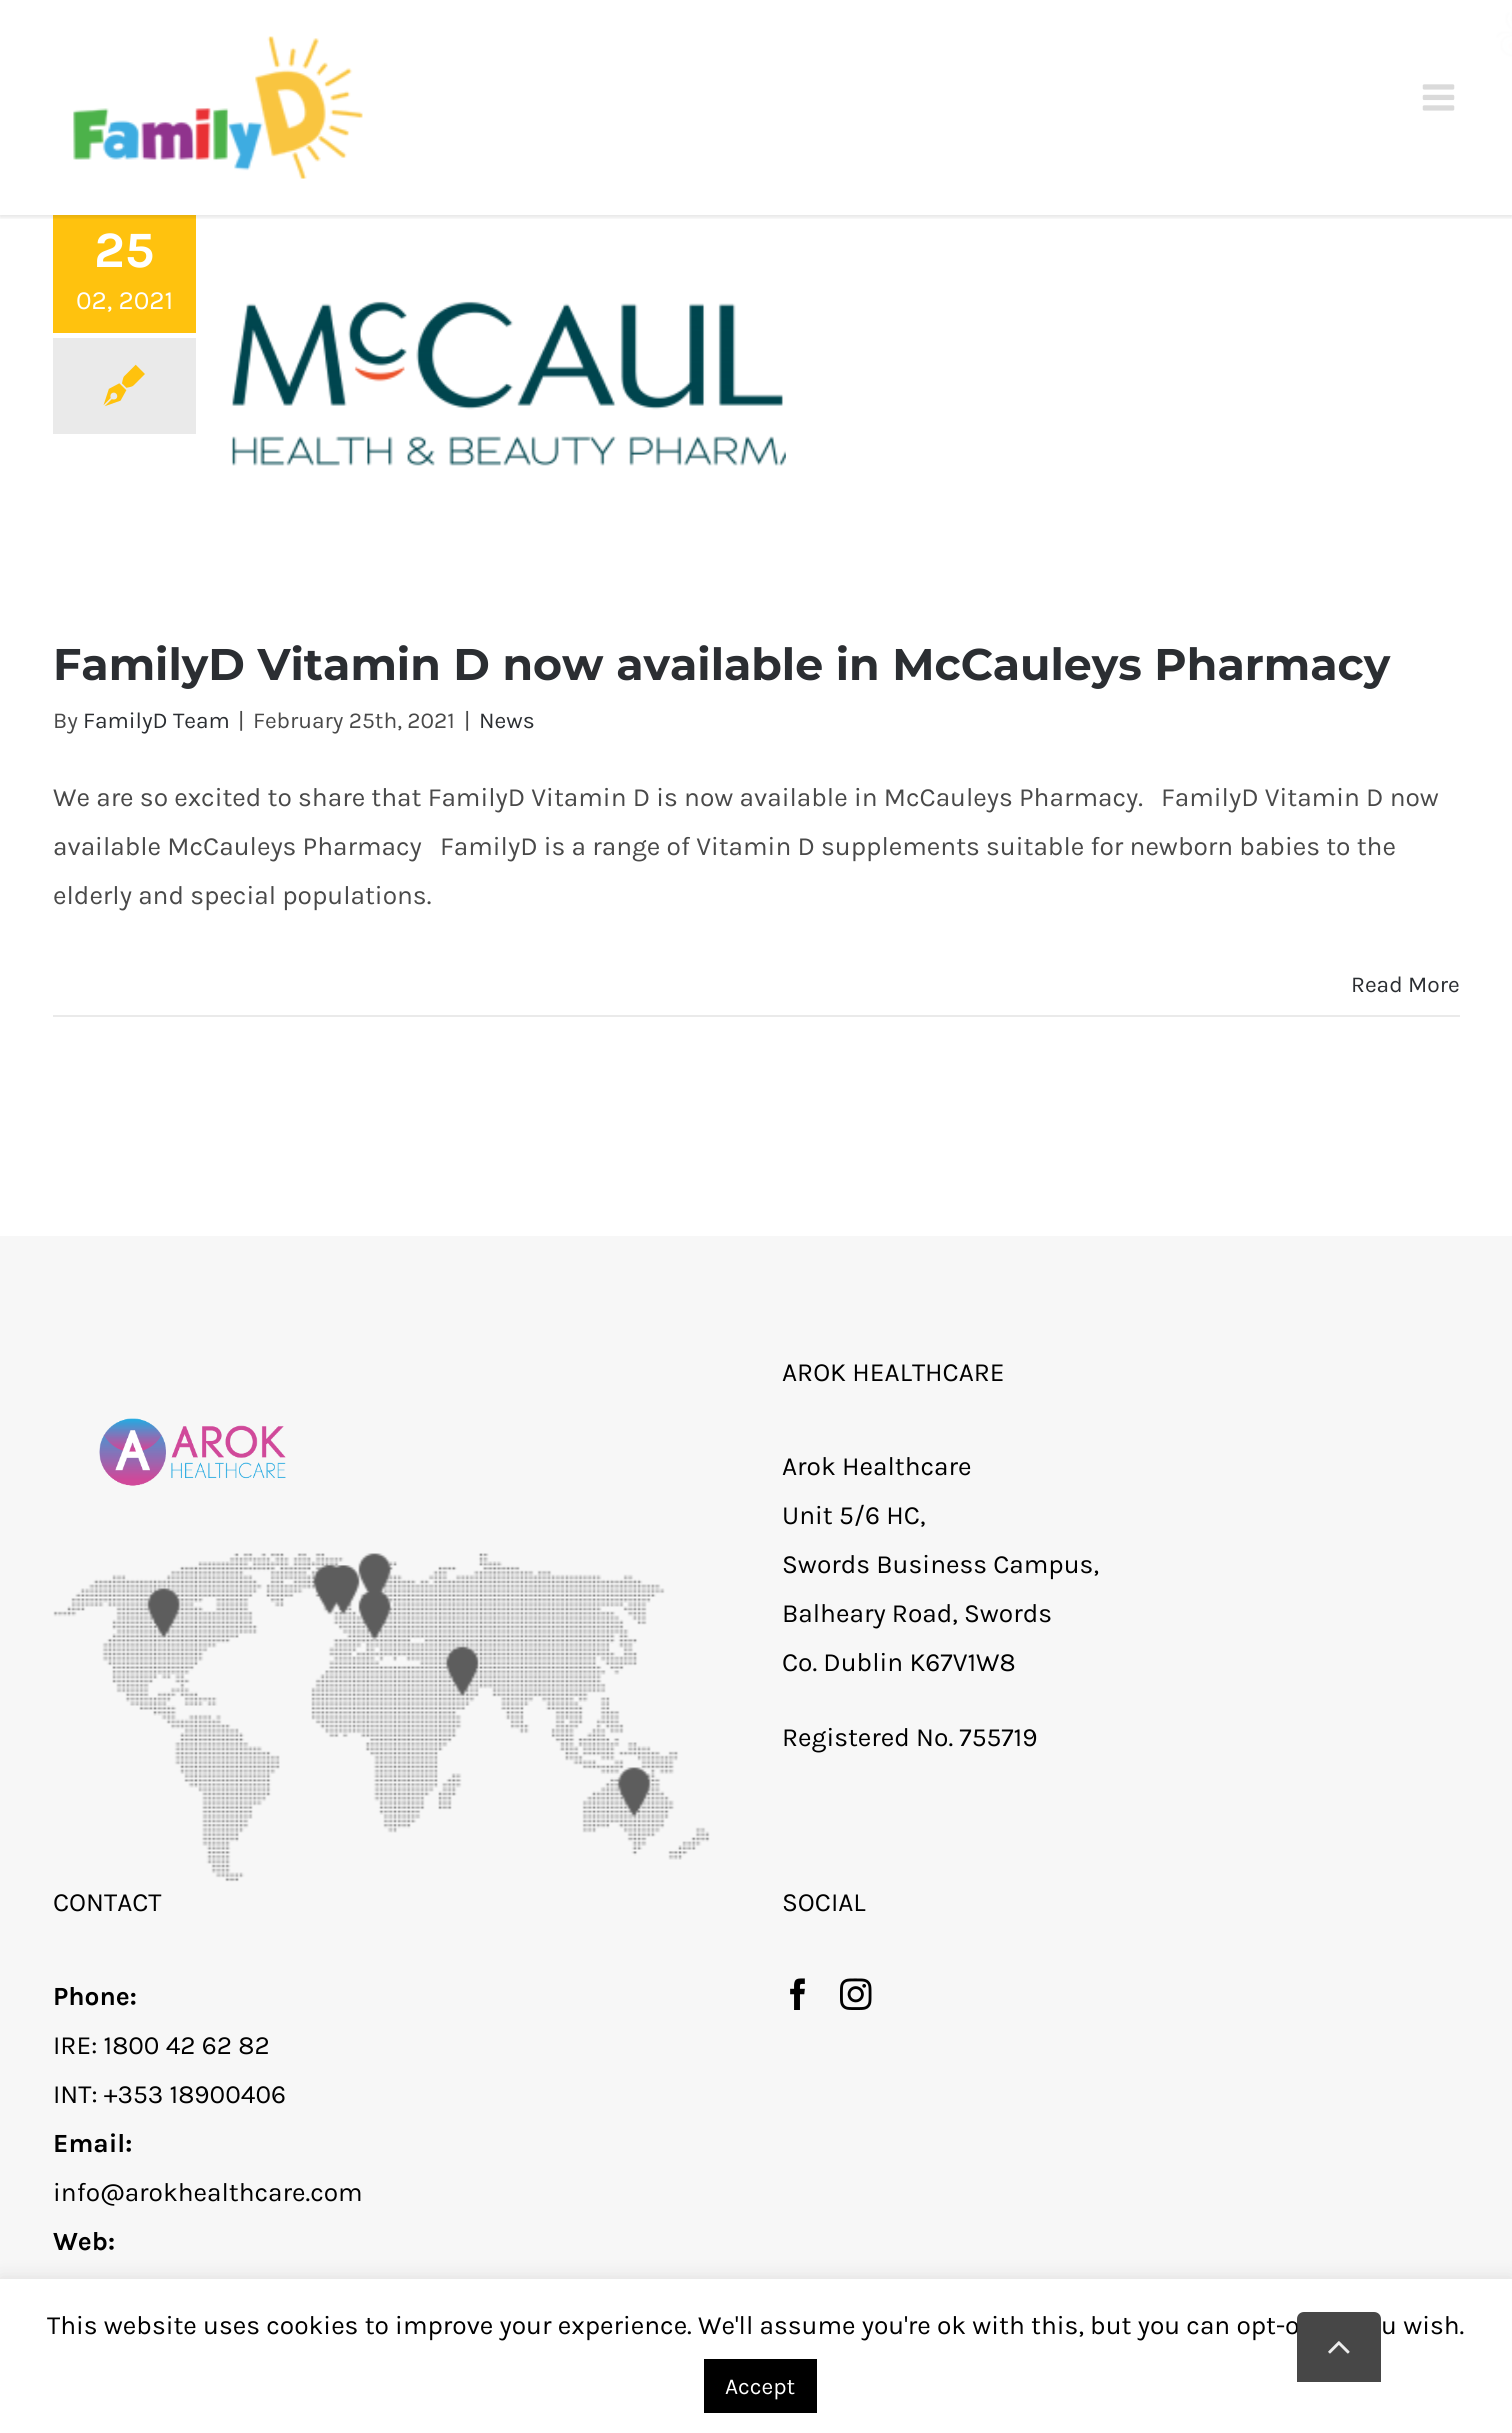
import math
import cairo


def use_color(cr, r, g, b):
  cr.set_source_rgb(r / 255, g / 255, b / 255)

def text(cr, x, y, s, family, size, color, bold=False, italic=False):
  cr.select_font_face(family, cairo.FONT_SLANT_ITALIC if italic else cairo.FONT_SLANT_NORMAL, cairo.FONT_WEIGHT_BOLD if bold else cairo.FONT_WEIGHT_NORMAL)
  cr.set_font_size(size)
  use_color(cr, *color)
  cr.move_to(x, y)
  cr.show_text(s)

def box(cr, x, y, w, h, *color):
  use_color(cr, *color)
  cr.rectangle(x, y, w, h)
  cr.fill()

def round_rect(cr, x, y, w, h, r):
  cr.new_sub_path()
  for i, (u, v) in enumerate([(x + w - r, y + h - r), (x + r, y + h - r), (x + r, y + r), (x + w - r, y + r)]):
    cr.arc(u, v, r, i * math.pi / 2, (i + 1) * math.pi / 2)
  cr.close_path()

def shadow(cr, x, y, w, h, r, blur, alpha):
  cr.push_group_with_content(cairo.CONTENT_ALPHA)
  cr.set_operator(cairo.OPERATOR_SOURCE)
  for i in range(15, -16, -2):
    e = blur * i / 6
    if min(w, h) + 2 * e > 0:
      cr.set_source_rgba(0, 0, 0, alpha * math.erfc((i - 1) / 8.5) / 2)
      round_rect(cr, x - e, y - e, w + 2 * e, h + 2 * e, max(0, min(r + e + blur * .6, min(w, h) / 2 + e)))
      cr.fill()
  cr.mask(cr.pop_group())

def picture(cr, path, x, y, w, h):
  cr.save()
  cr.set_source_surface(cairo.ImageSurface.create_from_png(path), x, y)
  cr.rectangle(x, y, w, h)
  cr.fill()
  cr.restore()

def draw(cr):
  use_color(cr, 255, 255, 255)
  cr.paint()
  picture(cr, "img_01.png", 0, 0, 1512, 122)
  box(cr, 53, 215, 143, 118, 255, 194, 14)
  cr.save()
  cr.rectangle(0, 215, 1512, 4)
  cr.clip()
  use_color(cr, 0, 0, 0)
  shadow(cr, 0, 2, 1512, 215, 0, 2.5, 0.12)
  cr.restore()
  picture(cr, "img_02.png", 73, 36, 290, 143)
  picture(cr, "img_03.png", 1422, 84, 33, 27)
  box(cr, 53, 338, 143, 96, 234, 234, 234)
  picture(cr, "img_04.png", 103, 364, 42, 43)
  picture(cr, "img_05.png", 231, 301, 555, 165)
  box(cr, 53, 1015, 1407, 2, 234, 234, 234)
  box(cr, 0, 1236, 1512, 1043, 247, 247, 247)
  picture(cr, "img_06.png", 99, 1418, 187, 68)
  picture(cr, "img_07.png", 53, 1553, 657, 329)
  picture(cr, "img_08.png", 790, 1978, 15, 32)
  picture(cr, "img_09.png", 840, 1978, 32, 32)
  use_color(cr, 172, 171, 171)
  shadow(cr, 0, 2277, 1512, 156, 0, 9, 0.3)
  box(cr, 0, 2279, 1512, 154, 255, 255, 255)
  box(cr, 704, 2359, 113, 54, 0, 0, 0)
  text(cr, 94, 267, "25", "Karla", 51, (255, 255, 255), bold=True)
  text(cr, 76, 309, "02, 2021", "Karla", 26.25, (255, 255, 255))
  text(cr, 53, 680, "FamilyD Vitamin D now available in McCauleys Pharmacy", "Montserrat", 44.3, (43, 46, 50), bold=True)
  text(cr, 53, 728, "By", "Karla", 22.75, (73, 73, 73))
  text(cr, 83, 728, "FamilyD Team", "Karla", 22.75, (43, 46, 50))
  text(cr, 238, 728, "|", "Karla", 22.75, (73, 73, 73))
  text(cr, 253, 728, "February 25th, 2021", "Karla", 22.75, (73, 73, 73))
  text(cr, 464, 728, "|", "Karla", 22.75, (73, 73, 73))
  text(cr, 479, 728, "News", "Karla", 22.75, (43, 46, 50))
  text(cr, 53, 806, "We are so excited to share that FamilyD Vitamin D is now available in McCauleys Pharmacy.", "Karla", 26.25, (73, 73, 73))
  text(cr, 1161, 806, "FamilyD Vitamin D now", "Karla", 26.25, (73, 73, 73))
  text(cr, 53, 855, "available McCauleys Pharmacy", "Karla", 26.25, (73, 73, 73))
  text(cr, 440, 855, "FamilyD is a range of Vitamin D supplements suitable for newborn babies to the", "Karla", 26.25, (73, 73, 73))
  text(cr, 53, 904, "elderly and special populations.", "Karla", 26.25, (73, 73, 73))
  text(cr, 1351, 992, "Read More", "Karla", 22.75, (43, 46, 50))
  text(cr, 782, 1381, "AROK HEALTHCARE", "Karla", 26.25, (0, 0, 0))
  text(cr, 782, 1475, "Arok Healthcare", "Karla", 26.25, (0, 0, 0))
  text(cr, 782, 1524, "Unit 5/6 HC,", "Karla", 26.25, (0, 0, 0))
  text(cr, 782, 1573, "Swords Business Campus,", "Karla", 26.25, (0, 0, 0))
  text(cr, 782, 1622, "Balheary Road, Swords", "Karla", 26.25, (0, 0, 0))
  text(cr, 782, 1671, "Co. Dublin K67V1W8", "Karla", 26.25, (0, 0, 0))
  text(cr, 782, 1746, "Registered No. 755719", "Karla", 26.25, (0, 0, 0))
  text(cr, 53, 1911, "CONTACT", "Karla", 26.25, (0, 0, 0))
  text(cr, 53, 2005, "Phone:", "Karla", 26.25, (0, 0, 0), bold=True)
  text(cr, 53, 2054, "IRE: 1800 42 62 82", "Karla", 26.25, (0, 0, 0))
  text(cr, 53, 2103, "INT: +353 18900406", "Karla", 26.25, (0, 0, 0))
  text(cr, 53, 2152, "Email:", "Karla", 26.25, (0, 0, 0), bold=True)
  text(cr, 53, 2201, "info@arokhealthcare.com", "Karla", 26.25, (0, 0, 0))
  text(cr, 53, 2250, "Web:", "Karla", 26.25, (0, 0, 0), bold=True)
  text(cr, 782, 1911, "SOCIAL", "Karla", 26.25, (0, 0, 0))
  text(cr, 47, 2334, "This website uses cookies to improve your experience. We'll assume you're ok with this, but you can opt-o", "Karla", 26.25, (0, 0, 0))
  cr.set_source_rgba(0.2, 0.2, 0.2, 0.9)
  cr.new_path()
  cr.move_to(1304, 2312)
  cr.line_to(1374, 2312)
  cr.curve_to(1378, 2312, 1381, 2315, 1381, 2319)
  cr.line_to(1381, 2382)
  cr.line_to(1297, 2382)
  cr.line_to(1297, 2319)
  cr.curve_to(1297, 2315, 1300, 2312, 1304, 2312)
  cr.close_path()
  cr.fill()
  picture(cr, "img_10.png", 1328, 2341, 22, 13)
  text(cr, 1381, 2334, "u wish.", "Karla", 26.25, (0, 0, 0))
  text(cr, 725, 2394, "Accept", "Karla", 22.75, (255, 255, 255))


surface = cairo.ImageSurface(cairo.FORMAT_RGB24, 1512, 2433)
cr = cairo.Context(surface)
options = cairo.FontOptions()
options.set_hint_metrics(cairo.HINT_METRICS_OFF)
options.set_hint_style(cairo.HINT_STYLE_NONE)
cr.set_font_options(options)
cr.set_miter_limit(4)
draw(cr)
surface.write_to_png("out.png")
